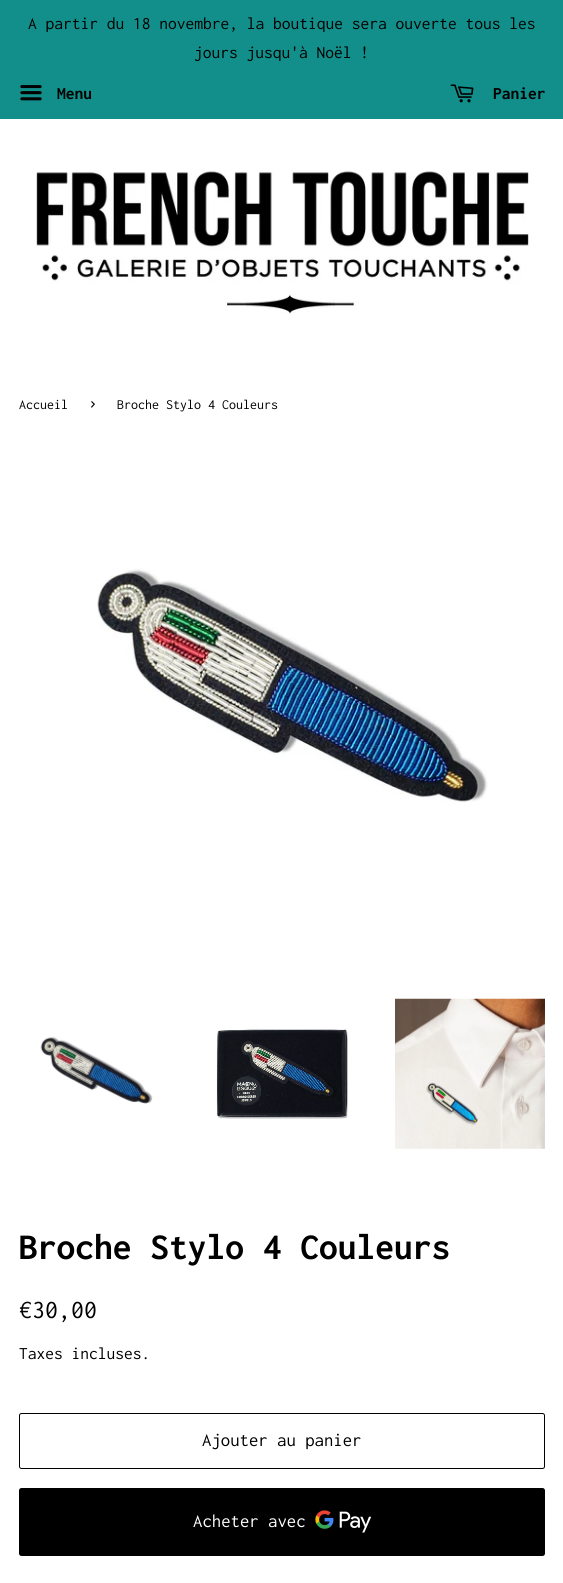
import math
import cairo


def use_color(cr, r, g, b):
  cr.set_source_rgb(r / 255, g / 255, b / 255)

def text(cr, x, y, s, family, size, color, bold=False, italic=False):
  cr.select_font_face(family, cairo.FONT_SLANT_ITALIC if italic else cairo.FONT_SLANT_NORMAL, cairo.FONT_WEIGHT_BOLD if bold else cairo.FONT_WEIGHT_NORMAL)
  cr.set_font_size(size)
  use_color(cr, *color)
  cr.move_to(x, y)
  cr.show_text(s)

def box(cr, x, y, w, h, *color):
  use_color(cr, *color)
  cr.rectangle(x, y, w, h)
  cr.fill()

def round_rect(cr, x, y, w, h, r):
  cr.new_sub_path()
  for i, (u, v) in enumerate([(x + w - r, y + h - r), (x + r, y + h - r), (x + r, y + r), (x + w - r, y + r)]):
    cr.arc(u, v, r, i * math.pi / 2, (i + 1) * math.pi / 2)
  cr.close_path()

def picture(cr, path, x, y, w, h):
  cr.save()
  cr.set_source_surface(cairo.ImageSurface.create_from_png(path), x, y)
  cr.rectangle(x, y, w, h)
  cr.fill()
  cr.restore()

def draw(cr):
  use_color(cr, 255, 255, 255)
  cr.paint()
  box(cr, 0, 0, 563, 119, 18, 143, 138)
  picture(cr, "img_01.png", 20, 85, 22, 16)
  picture(cr, "img_02.png", 450, 84, 24, 19)
  picture(cr, "img_03.png", 36, 170, 493, 144)
  picture(cr, "img_04.png", 97, 568, 391, 234)
  picture(cr, "img_05.png", 40, 1036, 113, 68)
  picture(cr, "img_06.png", 216, 1029, 132, 90)
  picture(cr, "img_07.png", 395, 998, 150, 151)
  round_rect(cr, 19.5, 1413.5, 525, 55, 2)
  use_color(cr, 0, 0, 0)
  cr.set_line_width(1)
  cr.stroke()
  round_rect(cr, 19, 1488, 526, 68, 2.5)
  cr.fill()
  picture(cr, "img_08.png", 315, 1510, 56, 23)
  text(cr, 28, 29, "A partir du 18 novembre, la boutique sera ouverte tous les", "Inconsolata", 17.5, (0, 0, 0))
  text(cr, 194, 58, "jours jusqu'à Noël !", "Inconsolata", 17.5, (0, 0, 0))
  text(cr, 57, 99, "Menu", "Inconsolata", 17.5, (0, 0, 0), bold=True)
  text(cr, 493, 99, "Panier", "Inconsolata", 17.5, (0, 0, 0), bold=True)
  text(cr, 19, 409, "Accueil", "Inconsolata", 14, (0, 0, 0))
  text(cr, 88, 409, "›", "Inconsolata", 20, (0, 0, 0))
  text(cr, 117, 409, "Broche Stylo 4 Couleurs", "Inconsolata", 14, (0, 0, 0))
  text(cr, 19, 1259, "Broche Stylo 4 Couleurs", "Inconsolata", 37.5, (0, 0, 0), bold=True)
  text(cr, 19, 1318, "€30,00", "Inconsolata", 26, (0, 0, 0))
  text(cr, 19, 1359, "Taxes incluses.", "Inconsolata", 17.5, (0, 0, 0))
  text(cr, 202, 1446, "Ajouter au panier", "Inconsolata", 18.75, (0, 0, 0))
  text(cr, 193, 1527, "Acheter avec", "Inconsolata", 18.75, (255, 255, 255))


surface = cairo.ImageSurface(cairo.FORMAT_RGB24, 563, 1583)
cr = cairo.Context(surface)
options = cairo.FontOptions()
options.set_hint_metrics(cairo.HINT_METRICS_OFF)
options.set_hint_style(cairo.HINT_STYLE_NONE)
cr.set_font_options(options)
cr.set_miter_limit(4)
draw(cr)
surface.write_to_png("out.png")
